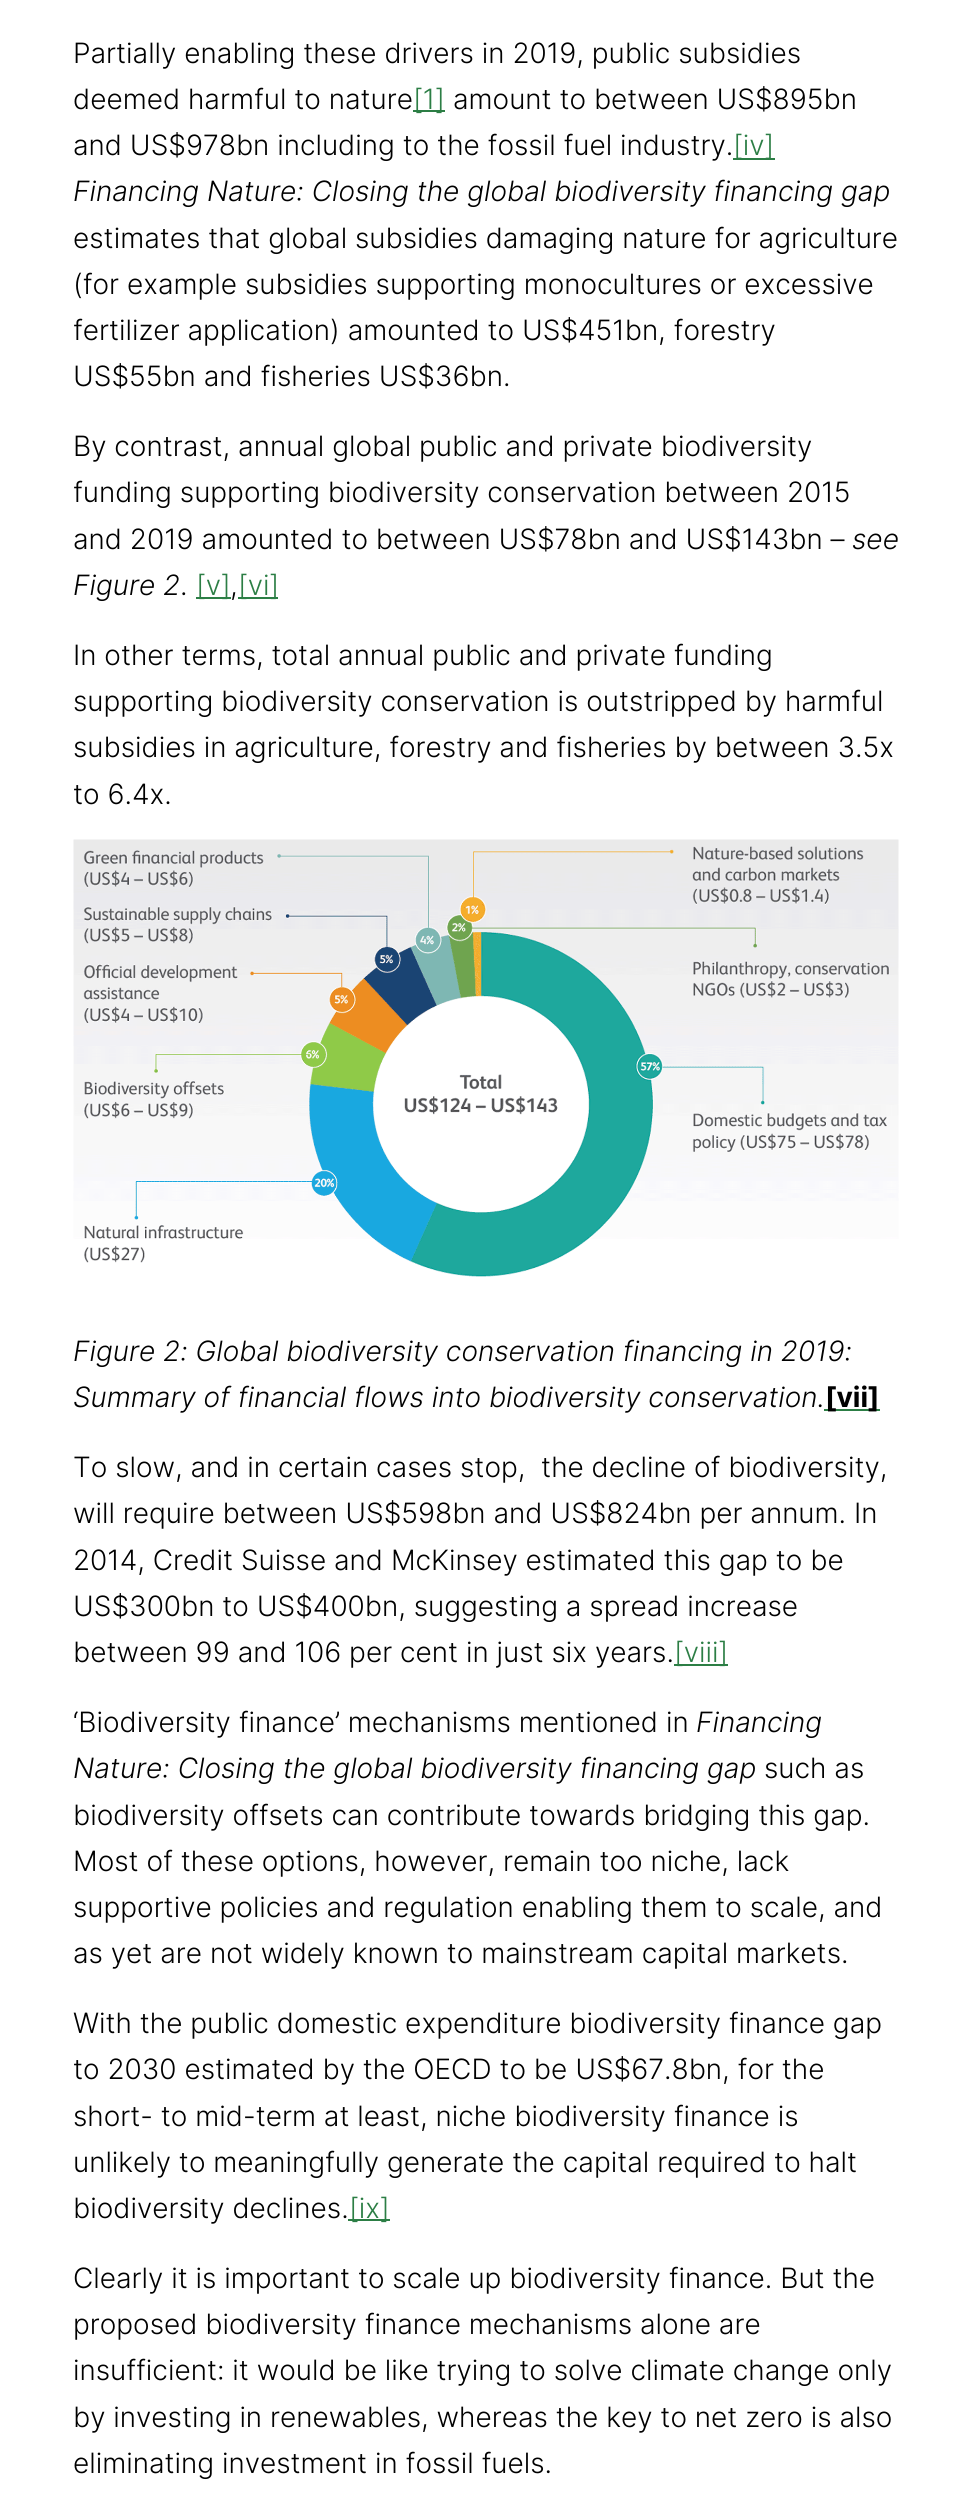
import math
import cairo


def use_color(cr, r, g, b):
  cr.set_source_rgb(r / 255, g / 255, b / 255)

def text(cr, x, y, s, family, size, color, bold=False, italic=False):
  cr.select_font_face(family, cairo.FONT_SLANT_ITALIC if italic else cairo.FONT_SLANT_NORMAL, cairo.FONT_WEIGHT_BOLD if bold else cairo.FONT_WEIGHT_NORMAL)
  cr.set_font_size(size)
  use_color(cr, *color)
  cr.move_to(x, y)
  cr.show_text(s)

def box(cr, x, y, w, h, *color):
  use_color(cr, *color)
  cr.rectangle(x, y, w, h)
  cr.fill()

def picture(cr, path, x, y, w, h):
  cr.save()
  cr.set_source_surface(cairo.ImageSurface.create_from_png(path), x, y)
  cr.rectangle(x, y, w, h)
  cr.fill()
  cr.restore()

def draw(cr):
  use_color(cr, 255, 255, 255)
  cr.paint()
  box(cr, 413, 110, 32, 2, 44, 126, 69)
  box(cr, 733, 158, 42, 2, 44, 126, 69)
  box(cr, 196, 597, 35, 2, 44, 126, 69)
  box(cr, 238, 597, 40, 2, 44, 126, 69)
  picture(cr, "img_01.png", 73, 839, 826, 438)
  box(cr, 824, 1409, 56, 2, 44, 126, 69)
  box(cr, 674, 1664, 54, 2, 44, 126, 69)
  box(cr, 348, 2219, 42, 2, 44, 126, 69)
  text(cr, 73, 63, "Partially enabling these drivers in 2019, public subsidies", "Inter Light", 28, (0, 0, 0))
  text(cr, 73, 109, "deemed harmful to nature", "Inter Light", 28, (0, 0, 0))
  text(cr, 413, 109, "[1]", "Inter Light", 28, (44, 126, 69))
  text(cr, 453, 109, "amount to between US$895bn", "Inter Light", 28, (0, 0, 0))
  text(cr, 73, 155, "and US$978bn including to the fossil fuel industry.", "Inter Light", 28, (0, 0, 0))
  text(cr, 733, 155, "[iv]", "Inter Light", 28, (44, 126, 69))
  text(cr, 73, 201, "Financing Nature: Closing the global biodiversity financing gap", "Inter Light", 28, (0, 0, 0), italic=True)
  text(cr, 73, 248, "estimates that global subsidies damaging nature for agriculture", "Inter Light", 28, (0, 0, 0))
  text(cr, 73, 294, "(for example subsidies supporting monocultures or excessive", "Inter Light", 28, (0, 0, 0))
  text(cr, 73, 340, "fertilizer application) amounted to US$451bn, forestry", "Inter Light", 28, (0, 0, 0))
  text(cr, 73, 386, "US$55bn and fisheries US$36bn.", "Inter Light", 28, (0, 0, 0))
  text(cr, 73, 456, "By contrast, annual global public and private biodiversity", "Inter Light", 28, (0, 0, 0))
  text(cr, 73, 502, "funding supporting biodiversity conservation between 2015", "Inter Light", 28, (0, 0, 0))
  text(cr, 73, 549, "and 2019 amounted to between US$78bn and US$143bn –", "Inter Light", 28, (0, 0, 0))
  text(cr, 852, 549, "see", "Inter Light", 28, (0, 0, 0), italic=True)
  text(cr, 73, 595, "Figure 2", "Inter Light", 28, (0, 0, 0), italic=True)
  text(cr, 180, 595, ".", "Inter Light", 28, (0, 0, 0))
  text(cr, 196, 595, "[v]", "Inter Light", 28, (44, 126, 69))
  text(cr, 230, 595, ",", "Inter Light", 28, (0, 0, 0))
  text(cr, 238, 595, "[vi]", "Inter Light", 28, (44, 126, 69))
  text(cr, 73, 665, "In other terms, total annual public and private funding", "Inter Light", 28, (0, 0, 0))
  text(cr, 73, 711, "supporting biodiversity conservation is outstripped by harmful", "Inter Light", 28, (0, 0, 0))
  text(cr, 73, 757, "subsidies in agriculture, forestry and fisheries by between 3.5x", "Inter Light", 28, (0, 0, 0))
  text(cr, 73, 804, "to 6.4x.", "Inter Light", 28, (0, 0, 0))
  text(cr, 73, 1361, "Figure 2: Global biodiversity conservation financing in 2019:", "Inter Light", 28, (0, 0, 0), italic=True)
  text(cr, 73, 1407, "Summary of financial flows into biodiversity conservation.", "Inter Light", 28, (0, 0, 0), italic=True)
  text(cr, 825, 1407, "[vii]", "Inter", 28, (0, 0, 0), bold=True)
  text(cr, 73, 1477, "To slow, and in certain cases stop,  the decline of biodiversity,", "Inter Light", 28, (0, 0, 0))
  text(cr, 73, 1523, "will require between US$598bn and US$824bn per annum. In", "Inter Light", 28, (0, 0, 0))
  text(cr, 73, 1570, "2014, Credit Suisse and McKinsey estimated this gap to be", "Inter Light", 28, (0, 0, 0))
  text(cr, 73, 1616, "US$300bn to US$400bn, suggesting a spread increase", "Inter Light", 28, (0, 0, 0))
  text(cr, 73, 1662, "between 99 and 106 per cent in just six years.", "Inter Light", 28, (0, 0, 0))
  text(cr, 674, 1662, "[viii]", "Inter Light", 28, (44, 126, 69))
  text(cr, 73, 1732, "‘Biodiversity finance’ mechanisms mentioned in", "Inter Light", 28, (0, 0, 0))
  text(cr, 696, 1732, "Financing", "Inter Light", 28, (0, 0, 0), italic=True)
  text(cr, 73, 1778, "Nature: Closing the global biodiversity financing gap", "Inter Light", 28, (0, 0, 0), italic=True)
  text(cr, 764, 1778, "such as", "Inter Light", 28, (0, 0, 0))
  text(cr, 73, 1825, "biodiversity offsets can contribute towards bridging this gap.", "Inter Light", 28, (0, 0, 0))
  text(cr, 73, 1871, "Most of these options, however, remain too niche, lack", "Inter Light", 28, (0, 0, 0))
  text(cr, 73, 1917, "supportive policies and regulation enabling them to scale, and", "Inter Light", 28, (0, 0, 0))
  text(cr, 73, 1963, "as yet are not widely known to mainstream capital markets.", "Inter Light", 28, (0, 0, 0))
  text(cr, 73, 2033, "With the public domestic expenditure biodiversity finance gap", "Inter Light", 28, (0, 0, 0))
  text(cr, 73, 2079, "to 2030 estimated by the OECD to be US$67.8bn, for the", "Inter Light", 28, (0, 0, 0))
  text(cr, 73, 2126, "short- to mid-term at least, niche biodiversity finance is", "Inter Light", 28, (0, 0, 0))
  text(cr, 73, 2172, "unlikely to meaningfully generate the capital required to halt", "Inter Light", 28, (0, 0, 0))
  text(cr, 73, 2218, "biodiversity declines.", "Inter Light", 28, (0, 0, 0))
  text(cr, 349, 2218, "[ix]", "Inter Light", 28, (44, 126, 69))
  text(cr, 73, 2288, "Clearly it is important to scale up biodiversity finance. But the", "Inter Light", 28, (0, 0, 0))
  text(cr, 73, 2334, "proposed biodiversity finance mechanisms alone are", "Inter Light", 28, (0, 0, 0))
  text(cr, 73, 2380, "insufficient: it would be like trying to solve climate change only", "Inter Light", 28, (0, 0, 0))
  text(cr, 73, 2427, "by investing in renewables, whereas the key to net zero is also", "Inter Light", 28, (0, 0, 0))
  text(cr, 73, 2473, "eliminating investment in fossil fuels.", "Inter Light", 28, (0, 0, 0))


surface = cairo.ImageSurface(cairo.FORMAT_RGB24, 973, 2497)
cr = cairo.Context(surface)
options = cairo.FontOptions()
options.set_hint_metrics(cairo.HINT_METRICS_OFF)
options.set_hint_style(cairo.HINT_STYLE_NONE)
cr.set_font_options(options)
cr.set_miter_limit(4)
draw(cr)
surface.write_to_png("out.png")
